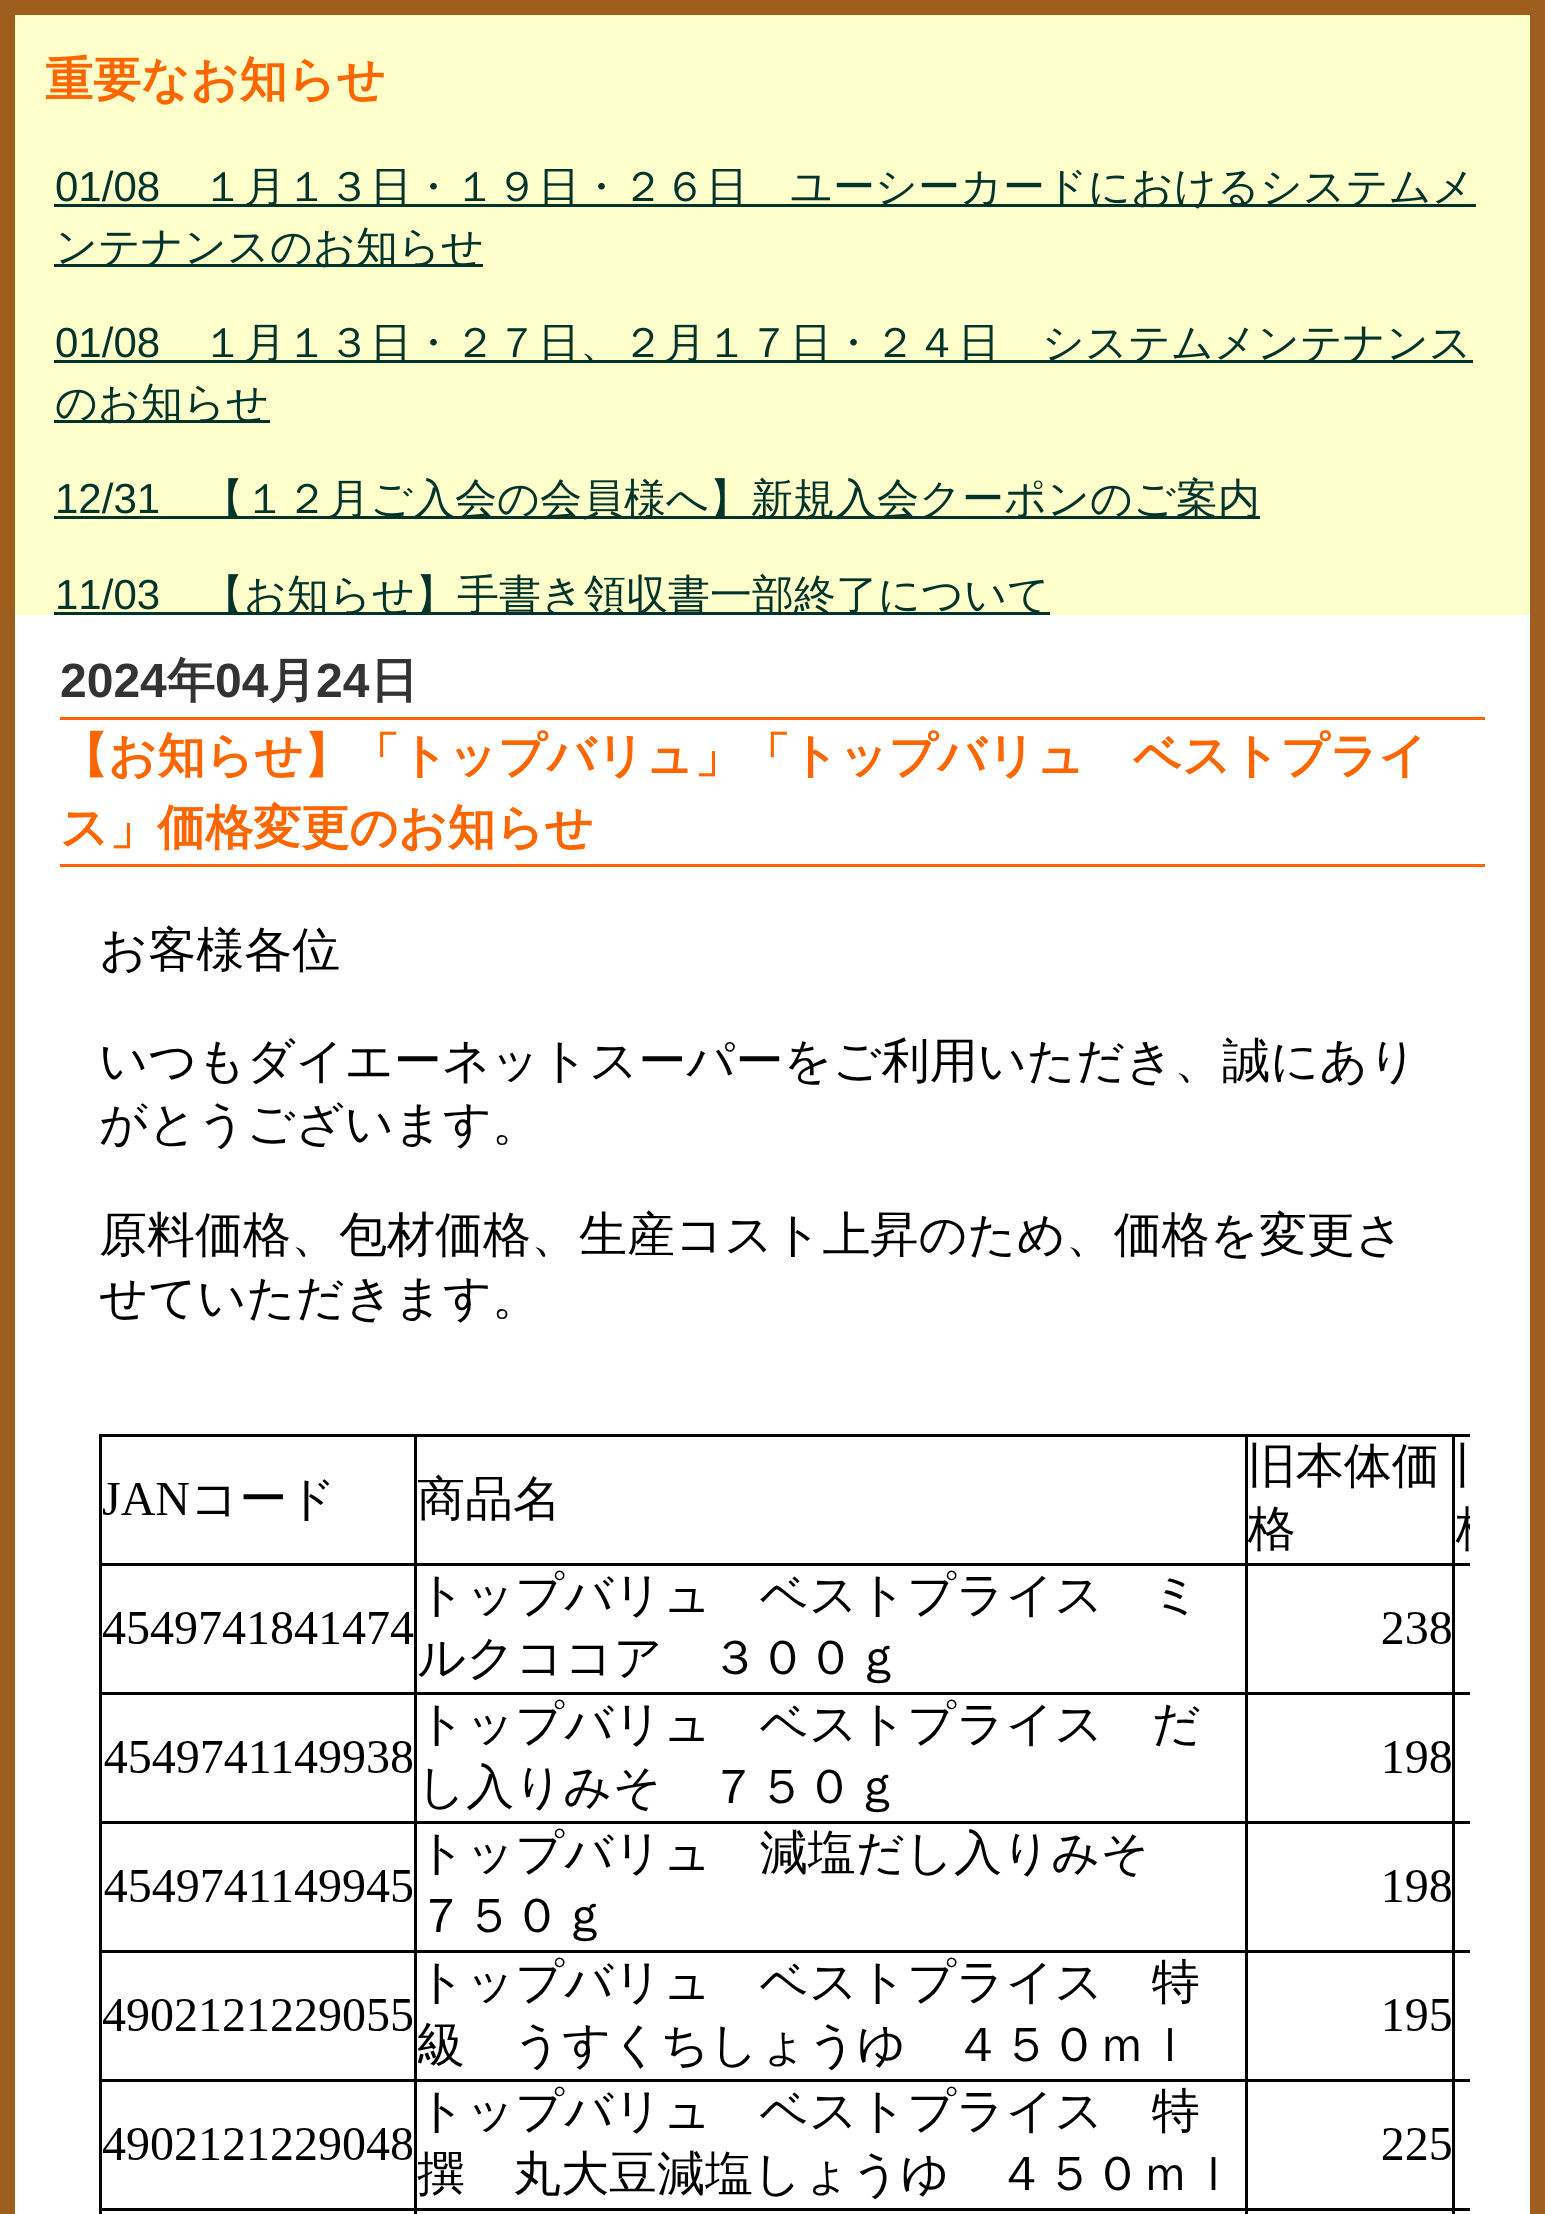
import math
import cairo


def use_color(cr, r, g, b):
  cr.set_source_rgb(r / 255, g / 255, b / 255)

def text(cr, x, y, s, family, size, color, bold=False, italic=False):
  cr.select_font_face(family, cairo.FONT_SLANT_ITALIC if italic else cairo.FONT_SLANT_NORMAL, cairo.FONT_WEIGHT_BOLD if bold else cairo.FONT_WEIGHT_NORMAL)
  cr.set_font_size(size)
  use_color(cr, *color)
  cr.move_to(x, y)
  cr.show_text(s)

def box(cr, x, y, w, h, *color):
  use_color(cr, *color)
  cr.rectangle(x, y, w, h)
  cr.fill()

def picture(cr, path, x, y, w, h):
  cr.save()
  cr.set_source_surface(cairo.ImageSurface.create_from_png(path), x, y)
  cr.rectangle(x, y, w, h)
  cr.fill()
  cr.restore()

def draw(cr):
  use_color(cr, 158, 94, 30)
  cr.paint()
  box(cr, 15, 15, 1515, 600, 255, 255, 204)
  box(cr, 54, 204, 1422, 3, 3, 52, 44)
  box(cr, 54, 264, 429, 3, 3, 52, 44)
  box(cr, 54, 360, 1419, 3, 3, 52, 44)
  box(cr, 54, 420, 216, 3, 3, 52, 44)
  box(cr, 54, 516, 1206, 3, 3, 52, 44)
  box(cr, 54, 612, 996, 3, 3, 52, 44)
  box(cr, 15, 615, 1515, 1599, 255, 255, 255)
  box(cr, 60, 717, 1425, 3, 255, 102, 0)
  box(cr, 60, 864, 1425, 3, 255, 102, 0)
  picture(cr, "img_01.png", 99, 925, 1371, 1289)
  text(cr, 45, 96, "重要なお知らせ", "WenQuanYi Zen Hei", 48, (255, 102, 0), bold=True)
  text(cr, 55, 201, "01/08", "Liberation Sans", 42, (3, 52, 44))
  text(cr, 202, 201, "１月１３日・１９日・２６日　ユーシーカードにおけるシステムメ", "WenQuanYi Zen Hei Medium", 42, (3, 52, 44))
  text(cr, 55, 261, "ンテナンスのお知らせ", "WenQuanYi Zen Hei Medium", 42, (3, 52, 44))
  text(cr, 55, 357, "01/08", "Liberation Sans", 42, (3, 52, 44))
  text(cr, 202, 357, "１月１３日・２７日、２月１７日・２４日　システムメンテナンス", "WenQuanYi Zen Hei Medium", 42, (3, 52, 44))
  text(cr, 55, 417, "のお知らせ", "WenQuanYi Zen Hei Medium", 42, (3, 52, 44))
  text(cr, 55, 513, "12/31", "Liberation Sans", 42, (3, 52, 44))
  text(cr, 202, 513, "【１２月ご入会の会員様へ】新規入会クーポンのご案内", "WenQuanYi Zen Hei Medium", 42, (3, 52, 44))
  text(cr, 55, 609, "11/03", "Liberation Sans", 42, (3, 52, 44))
  cr.save()
  cr.rectangle(15, 15, 1515, 600)
  cr.clip()
  text(cr, 202, 609, "【お知らせ】手書き領収書一部終了について", "WenQuanYi Zen Hei Medium", 42, (3, 52, 44))
  cr.restore()
  text(cr, 60, 697, "2024", "Liberation Sans", 48, (51, 51, 51), bold=True)
  text(cr, 167, 697, "年", "WenQuanYi Zen Hei", 48, (51, 51, 51), bold=True)
  text(cr, 215, 697, "04", "Liberation Sans", 48, (51, 51, 51), bold=True)
  text(cr, 268, 697, "月", "WenQuanYi Zen Hei", 48, (51, 51, 51), bold=True)
  text(cr, 316, 697, "24", "Liberation Sans", 48, (51, 51, 51), bold=True)
  text(cr, 370, 697, "日", "WenQuanYi Zen Hei", 48, (51, 51, 51), bold=True)
  text(cr, 60, 772, "【お知らせ】「トップバリュ」「トップバリュ　ベストプライ", "WenQuanYi Zen Hei", 48, (255, 102, 0), bold=True)
  text(cr, 60, 844, "ス」価格変更のお知らせ", "WenQuanYi Zen Hei", 48, (255, 102, 0), bold=True)


surface = cairo.ImageSurface(cairo.FORMAT_RGB24, 1545, 2214)
cr = cairo.Context(surface)
options = cairo.FontOptions()
options.set_hint_metrics(cairo.HINT_METRICS_OFF)
options.set_hint_style(cairo.HINT_STYLE_NONE)
cr.set_font_options(options)
cr.set_miter_limit(4)
draw(cr)
surface.write_to_png("out.png")
